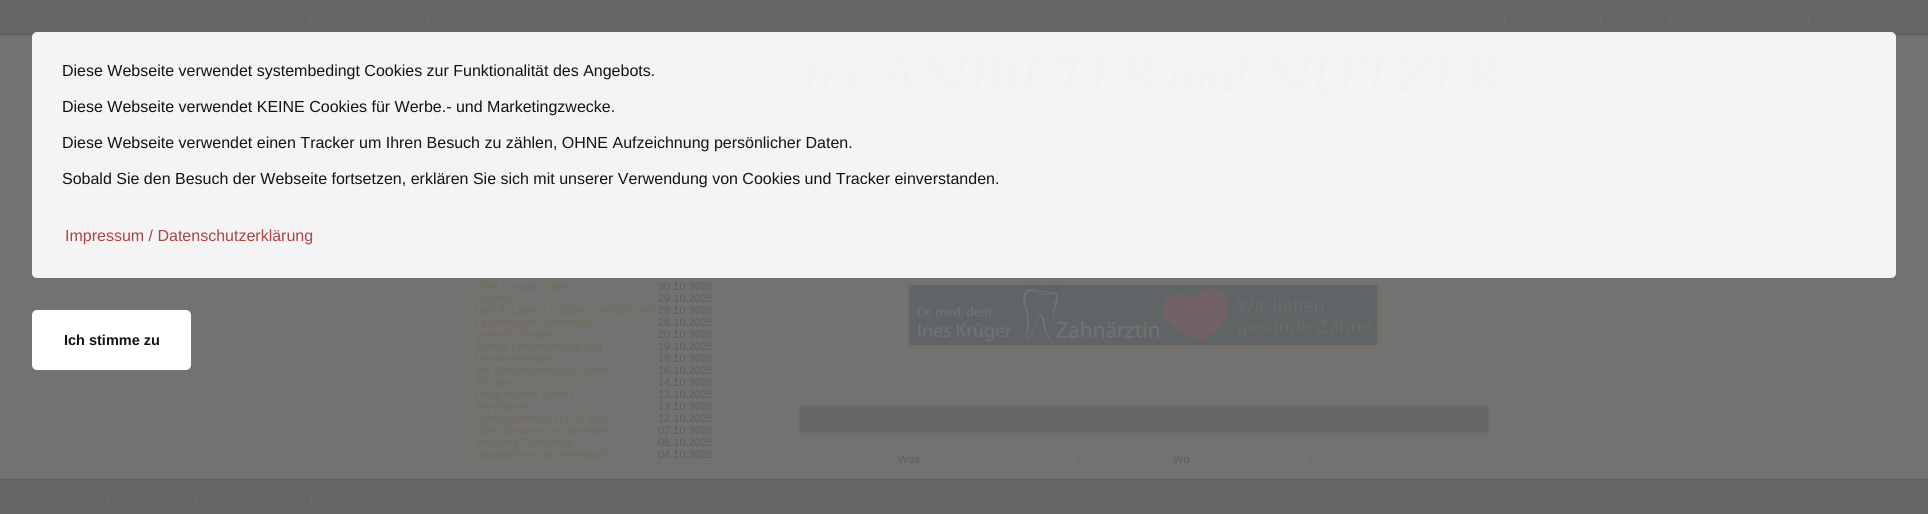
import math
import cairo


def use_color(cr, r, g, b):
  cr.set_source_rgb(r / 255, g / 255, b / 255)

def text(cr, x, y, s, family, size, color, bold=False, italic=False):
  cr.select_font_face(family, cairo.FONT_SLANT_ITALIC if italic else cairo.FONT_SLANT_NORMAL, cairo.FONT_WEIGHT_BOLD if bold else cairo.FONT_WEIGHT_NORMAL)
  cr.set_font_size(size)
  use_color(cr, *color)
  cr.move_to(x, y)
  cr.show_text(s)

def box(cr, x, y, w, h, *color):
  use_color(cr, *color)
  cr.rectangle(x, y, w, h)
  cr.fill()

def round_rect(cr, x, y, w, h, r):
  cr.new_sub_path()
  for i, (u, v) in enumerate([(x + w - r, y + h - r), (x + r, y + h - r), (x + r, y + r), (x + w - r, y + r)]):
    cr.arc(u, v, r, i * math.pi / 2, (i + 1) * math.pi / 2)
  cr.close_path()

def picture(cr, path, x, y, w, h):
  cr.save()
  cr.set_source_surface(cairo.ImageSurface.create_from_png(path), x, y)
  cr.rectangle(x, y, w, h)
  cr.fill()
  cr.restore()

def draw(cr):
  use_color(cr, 114, 114, 112)
  cr.paint()
  box(cr, 0, 0, 1928, 34, 101, 101, 101)
  picture(cr, "img_01.png", 0, 34, 1928, 2)
  picture(cr, "img_02.png", 98, 8, 1, 20)
  picture(cr, "img_02.png", 310, 8, 1, 20)
  picture(cr, "img_02.png", 428, 8, 1, 20)
  picture(cr, "img_02.png", 1504, 8, 1, 20)
  picture(cr, "img_02.png", 1600, 8, 1, 20)
  picture(cr, "img_02.png", 1670, 8, 1, 20)
  picture(cr, "img_02.png", 1808, 8, 1, 20)
  picture(cr, "img_03.png", 413, 61, 360, 133)
  picture(cr, "img_04.png", 804, 53, 698, 49)
  box(cr, 0, 212, 1928, 1, 110, 110, 110)
  picture(cr, "img_05.png", 439, 239, 310, 30)
  cr.new_path()
  cr.move_to(439, 238.5)
  cr.line_to(749, 238.5)
  cr.set_line_width(1)
  cr.set_dash([1, 1])
  cr.stroke()
  cr.new_path()
  cr.move_to(748.5, 238)
  cr.line_to(748.5, 473)
  cr.stroke()
  cr.new_path()
  cr.move_to(439, 472.5)
  cr.line_to(749, 472.5)
  cr.stroke()
  cr.new_path()
  cr.move_to(439.5, 238)
  cr.line_to(439.5, 473)
  cr.stroke()
  box(cr, 440, 262, 308, 3, 102, 102, 102)
  picture(cr, "img_07.png", 799, 239, 690, 30)
  cr.new_path()
  cr.move_to(799, 238.5)
  cr.line_to(1489, 238.5)
  use_color(cr, 110, 110, 110)
  cr.stroke()
  cr.new_path()
  cr.move_to(1488.5, 238)
  cr.line_to(1488.5, 369)
  cr.stroke()
  cr.new_path()
  cr.move_to(799, 368.5)
  cr.line_to(1489, 368.5)
  cr.stroke()
  cr.new_path()
  cr.move_to(799.5, 238)
  cr.line_to(799.5, 369)
  cr.stroke()
  box(cr, 800, 262, 688, 3, 102, 102, 102)
  cr.set_source_rgba(1, 1, 1, 0.92)
  round_rect(cr, 32, 32, 1864, 246, 5)
  cr.fill()
  use_color(cr, 255, 255, 254)
  round_rect(cr, 32, 310, 159, 60, 5)
  cr.fill()
  picture(cr, "img_06.png", 440, 464, 308, 8)
  picture(cr, "img_08.png", 907, 283, 472, 64)
  picture(cr, "img_09.png", 800, 360, 688, 8)
  picture(cr, "img_07.png", 799, 406, 690, 30)
  cr.new_path()
  cr.move_to(799, 405.5)
  cr.line_to(1489, 405.5)
  use_color(cr, 110, 110, 110)
  cr.stroke()
  cr.new_path()
  cr.move_to(1488.5, 405)
  cr.line_to(1488.5, 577)
  cr.stroke()
  cr.new_path()
  cr.move_to(799.5, 405)
  cr.line_to(799.5, 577)
  cr.stroke()
  box(cr, 800, 429, 688, 3, 102, 102, 102)
  picture(cr, "img_10.png", 897, 475, 204, 3)
  cr.new_path()
  cr.move_to(897, 468.5)
  cr.line_to(1101, 468.5)
  use_color(cr, 110, 110, 110)
  cr.stroke()
  cr.new_path()
  cr.move_to(1100.5, 468)
  cr.line_to(1100.5, 496)
  cr.stroke()
  cr.new_path()
  cr.move_to(897.5, 468)
  cr.line_to(897.5, 496)
  cr.stroke()
  picture(cr, "img_10.png", 1172, 475, 204, 3)
  cr.new_path()
  cr.move_to(1172, 468.5)
  cr.line_to(1376, 468.5)
  cr.stroke()
  cr.new_path()
  cr.move_to(1375.5, 468)
  cr.line_to(1375.5, 496)
  cr.stroke()
  cr.new_path()
  cr.move_to(1172.5, 468)
  cr.line_to(1172.5, 496)
  cr.stroke()
  box(cr, 0, 480, 1928, 34, 101, 101, 101)
  picture(cr, "img_11.png", 0, 478, 1928, 2)
  picture(cr, "img_02.png", 108, 487, 1, 20)
  picture(cr, "img_02.png", 195, 487, 1, 20)
  picture(cr, "img_02.png", 311, 487, 1, 20)
  text(cr, 62, 76, "Diese Webseite verwendet systembedingt Cookies zur Funktionalität des Angebots.", "Liberation Sans", 16, (19, 19, 19))
  text(cr, 62, 112, "Diese Webseite verwendet KEINE Cookies für Werbe.- und Marketingzwecke.", "Liberation Sans", 16, (19, 19, 19))
  text(cr, 62, 148, "Diese Webseite verwendet einen Tracker um Ihren Besuch zu zählen, OHNE Aufzeichnung persönlicher Daten.", "Liberation Sans", 16, (19, 19, 19))
  text(cr, 62, 184, "Sobald Sie den Besuch der Webseite fortsetzen, erklären Sie sich mit unserer Verwendung von Cookies und Tracker einverstanden.", "Liberation Sans", 16, (19, 19, 19))
  text(cr, 65, 241, "Impressum / Datenschutzerklärung", "Liberation Sans", 16, (170, 67, 65))
  text(cr, 64, 345, "Ich stimme zu", "Liberation Sans", 14.5, (19, 19, 19), bold=True)
  text(cr, 475, 290, "OPK Europe GmbH", "Liberation Sans", 11, (114, 106, 94))
  text(cr, 658, 290, "30.10.2025", "Liberation Sans", 11, (94, 94, 94))
  text(cr, 475, 302, "Nakaryu", "Liberation Sans", 11, (114, 106, 94))
  text(cr, 658, 302, "29.10.2025", "Liberation Sans", 11, (94, 94, 94))
  text(cr, 475, 314, "METALLBAU LESZEK CHROSTOW", "Liberation Sans", 11, (114, 106, 94))
  text(cr, 658, 314, "28.10.2025", "Liberation Sans", 11, (94, 94, 94))
  text(cr, 475, 326, "Lauenburger Systembau", "Liberation Sans", 11, (114, 106, 94))
  text(cr, 658, 326, "28.10.2025", "Liberation Sans", 11, (94, 94, 94))
  text(cr, 475, 338, "greenPS GmbH", "Liberation Sans", 11, (114, 106, 94))
  text(cr, 658, 338, "20.10.2025", "Liberation Sans", 11, (94, 94, 94))
  text(cr, 475, 350, "Kristall Entrümpelung Saa", "Liberation Sans", 11, (114, 106, 94))
  text(cr, 658, 350, "19.10.2025", "Liberation Sans", 11, (94, 94, 94))
  text(cr, 475, 362, "Denise Wedding", "Liberation Sans", 11, (114, 106, 94))
  text(cr, 658, 362, "19.10.2025", "Liberation Sans", 11, (94, 94, 94))
  text(cr, 475, 374, "BN Steuerberatungs GmbH", "Liberation Sans", 11, (114, 106, 94))
  text(cr, 658, 374, "16.10.2025", "Liberation Sans", 11, (94, 94, 94))
  text(cr, 475, 386, "SEObot", "Liberation Sans", 11, (114, 106, 94))
  text(cr, 658, 386, "14.10.2025", "Liberation Sans", 11, (94, 94, 94))
  text(cr, 475, 398, "Haba Hähnle GmbH", "Liberation Sans", 11, (114, 106, 94))
  text(cr, 658, 398, "13.10.2025", "Liberation Sans", 11, (94, 94, 94))
  text(cr, 475, 410, "Bio-Balkon", "Liberation Sans", 11, (114, 106, 94))
  text(cr, 658, 410, "13.10.2025", "Liberation Sans", 11, (94, 94, 94))
  text(cr, 475, 422, "Schlüsseldienst D.H.E 24S", "Liberation Sans", 11, (114, 106, 94))
  text(cr, 658, 422, "12.10.2025", "Liberation Sans", 11, (94, 94, 94))
  text(cr, 475, 434, "GSA: Gesund-Sicher-Arbeit", "Liberation Sans", 11, (114, 106, 94))
  text(cr, 658, 434, "07.10.2025", "Liberation Sans", 11, (94, 94, 94))
  text(cr, 475, 446, "Innovera Consulting", "Liberation Sans", 11, (114, 106, 94))
  text(cr, 658, 446, "05.10.2025", "Liberation Sans", 11, (94, 94, 94))
  text(cr, 475, 458, "Neustadt an der Weinstraß", "Liberation Sans", 11, (114, 106, 94))
  text(cr, 658, 458, "04.10.2025", "Liberation Sans", 11, (94, 94, 94))
  text(cr, 898, 463, "Was", "Liberation Sans", 11, (94, 94, 94))
  text(cr, 1077, 463, "•", "Liberation Sans", 13, (114, 106, 94), bold=True)
  text(cr, 1173, 463, "Wo", "Liberation Sans", 11, (94, 94, 94))
  text(cr, 1309, 463, "•", "Liberation Sans", 13, (114, 106, 94), bold=True)


surface = cairo.ImageSurface(cairo.FORMAT_RGB24, 1928, 514)
cr = cairo.Context(surface)
options = cairo.FontOptions()
options.set_hint_metrics(cairo.HINT_METRICS_OFF)
options.set_hint_style(cairo.HINT_STYLE_NONE)
cr.set_font_options(options)
cr.set_miter_limit(4)
draw(cr)
surface.write_to_png("out.png")
